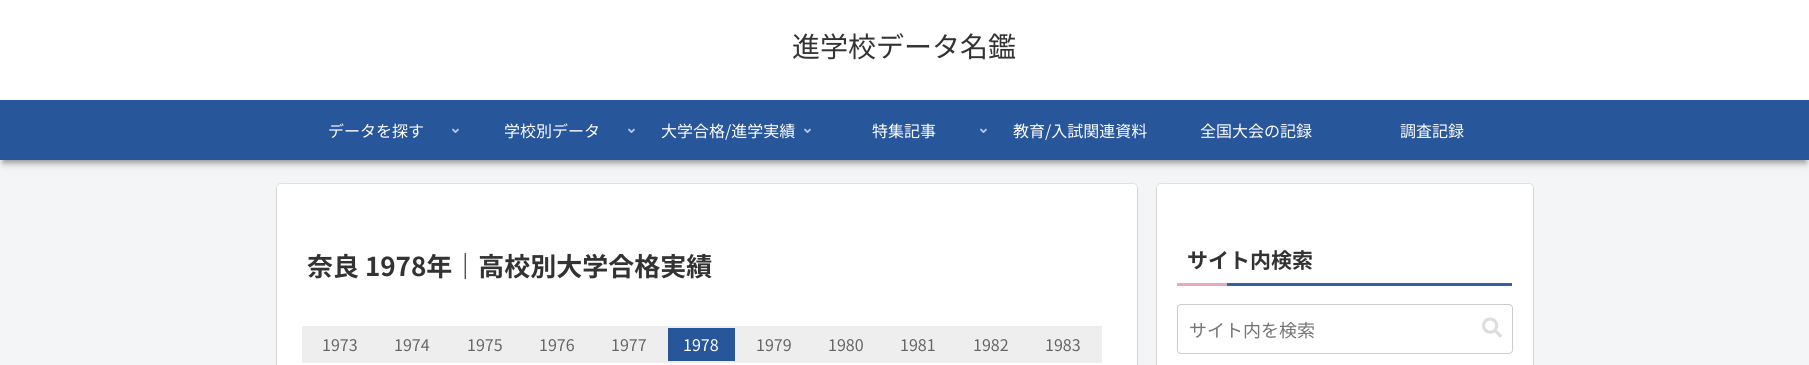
import math
import cairo


def use_color(cr, r, g, b):
  cr.set_source_rgb(r / 255, g / 255, b / 255)

def text(cr, x, y, s, family, size, color, bold=False, italic=False):
  cr.select_font_face(family, cairo.FONT_SLANT_ITALIC if italic else cairo.FONT_SLANT_NORMAL, cairo.FONT_WEIGHT_BOLD if bold else cairo.FONT_WEIGHT_NORMAL)
  cr.set_font_size(size)
  use_color(cr, *color)
  cr.move_to(x, y)
  cr.show_text(s)

def box(cr, x, y, w, h, *color):
  use_color(cr, *color)
  cr.rectangle(x, y, w, h)
  cr.fill()

def round_rect(cr, x, y, w, h, r):
  cr.new_sub_path()
  for i, (u, v) in enumerate([(x + w - r, y + h - r), (x + r, y + h - r), (x + r, y + r), (x + w - r, y + r)]):
    cr.arc(u, v, r, i * math.pi / 2, (i + 1) * math.pi / 2)
  cr.close_path()

def shadow(cr, x, y, w, h, r, blur, alpha):
  cr.push_group_with_content(cairo.CONTENT_ALPHA)
  cr.set_operator(cairo.OPERATOR_SOURCE)
  for i in range(15, -16, -2):
    e = blur * i / 6
    if min(w, h) + 2 * e > 0:
      cr.set_source_rgba(0, 0, 0, alpha * math.erfc((i - 1) / 8.5) / 2)
      round_rect(cr, x - e, y - e, w + 2 * e, h + 2 * e, max(0, min(r + e + blur * .6, min(w, h) / 2 + e)))
      cr.fill()
  cr.mask(cr.pop_group())

def picture(cr, path, x, y, w, h):
  cr.save()
  cr.set_source_surface(cairo.ImageSurface.create_from_png(path), x, y)
  cr.rectangle(x, y, w, h)
  cr.fill()
  cr.restore()

def draw(cr):
  use_color(cr, 244, 245, 247)
  cr.paint()
  use_color(cr, 0, 0, 0)
  shadow(cr, 3, 9, 1803, 154, 0, 5, 0.18)
  shadow(cr, 3, 9, 1803, 154, 0, 2.5, 0.24)
  box(cr, 0, 0, 1809, 100, 255, 255, 255)
  box(cr, 0, 100, 1809, 60, 40, 86, 154)
  picture(cr, "img_01.png", 452, 128, 7, 5)
  picture(cr, "img_01.png", 628, 128, 7, 5)
  picture(cr, "img_01.png", 804, 128, 7, 5)
  picture(cr, "img_01.png", 980, 128, 7, 5)
  round_rect(cr, 276.5, 183.5, 861, 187, 4.5)
  use_color(cr, 224, 225, 227)
  cr.set_line_width(1)
  cr.stroke()
  use_color(cr, 0, 0, 0)
  shadow(cr, 277, 186, 860, 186, 4, 1, 0.16)
  use_color(cr, 255, 255, 255)
  round_rect(cr, 277, 184, 860, 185, 4)
  cr.fill()
  box(cr, 302, 326, 800, 37, 238, 238, 238)
  box(cr, 668, 328, 67, 33, 40, 86, 154)
  round_rect(cr, 1156.5, 183.5, 377, 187, 4.5)
  use_color(cr, 224, 225, 227)
  cr.stroke()
  use_color(cr, 0, 0, 0)
  shadow(cr, 1157, 186, 376, 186, 4, 1, 0.16)
  use_color(cr, 255, 255, 255)
  round_rect(cr, 1157, 184, 376, 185, 4)
  cr.fill()
  box(cr, 1227, 283, 285, 3, 50, 97, 171)
  box(cr, 1177, 283, 50, 3, 234, 168, 191)
  round_rect(cr, 1177.5, 304.5, 335, 49, 3.5)
  use_color(cr, 204, 204, 204)
  cr.stroke()
  picture(cr, "img_02.png", 1482, 317, 20, 21)
  text(cr, 792, 57, "進学校データ名鑑", "Noto Sans JP", 28, (51, 51, 51))
  text(cr, 328, 137, "データを探す", "Noto Sans JP", 16, (255, 255, 255))
  text(cr, 504, 137, "学校別データ", "Noto Sans JP", 16, (255, 255, 255))
  text(cr, 661, 137, "大学合格/進学実績", "Noto Sans JP", 16, (255, 255, 255))
  text(cr, 872, 137, "特集記事", "Noto Sans JP", 16, (255, 255, 255))
  text(cr, 1013, 137, "教育/入試関連資料", "Noto Sans JP", 16, (255, 255, 255))
  text(cr, 1200, 137, "全国大会の記録", "Noto Sans JP", 16, (255, 255, 255))
  text(cr, 1400, 137, "調査記録", "Noto Sans JP", 16, (255, 255, 255))
  text(cr, 307, 276, "奈良 1978年｜高校別大学合格実績", "Noto Sans JP", 26, (51, 51, 51), bold=True)
  text(cr, 322, 351, "1973", "Noto Sans JP", 16, (102, 102, 102))
  text(cr, 394, 351, "1974", "Noto Sans JP", 16, (102, 102, 102))
  text(cr, 467, 351, "1975", "Noto Sans JP", 16, (102, 102, 102))
  text(cr, 539, 351, "1976", "Noto Sans JP", 16, (102, 102, 102))
  text(cr, 611, 351, "1977", "Noto Sans JP", 16, (102, 102, 102))
  text(cr, 683, 351, "1978", "Noto Sans JP", 16, (255, 255, 255))
  text(cr, 756, 351, "1979", "Noto Sans JP", 16, (102, 102, 102))
  text(cr, 828, 351, "1980", "Noto Sans JP", 16, (102, 102, 102))
  text(cr, 900, 351, "1981", "Noto Sans JP", 16, (102, 102, 102))
  text(cr, 973, 351, "1982", "Noto Sans JP", 16, (102, 102, 102))
  text(cr, 1045, 351, "1983", "Noto Sans JP", 16, (102, 102, 102))
  text(cr, 1187, 268, "サイト内検索", "Noto Sans JP", 21, (51, 51, 51), bold=True)
  text(cr, 1189, 337, "サイト内を検索", "Noto Sans JP", 18, (117, 117, 117))


surface = cairo.ImageSurface(cairo.FORMAT_RGB24, 1809, 365)
cr = cairo.Context(surface)
options = cairo.FontOptions()
options.set_hint_metrics(cairo.HINT_METRICS_OFF)
options.set_hint_style(cairo.HINT_STYLE_NONE)
cr.set_font_options(options)
cr.set_miter_limit(4)
draw(cr)
surface.write_to_png("out.png")
